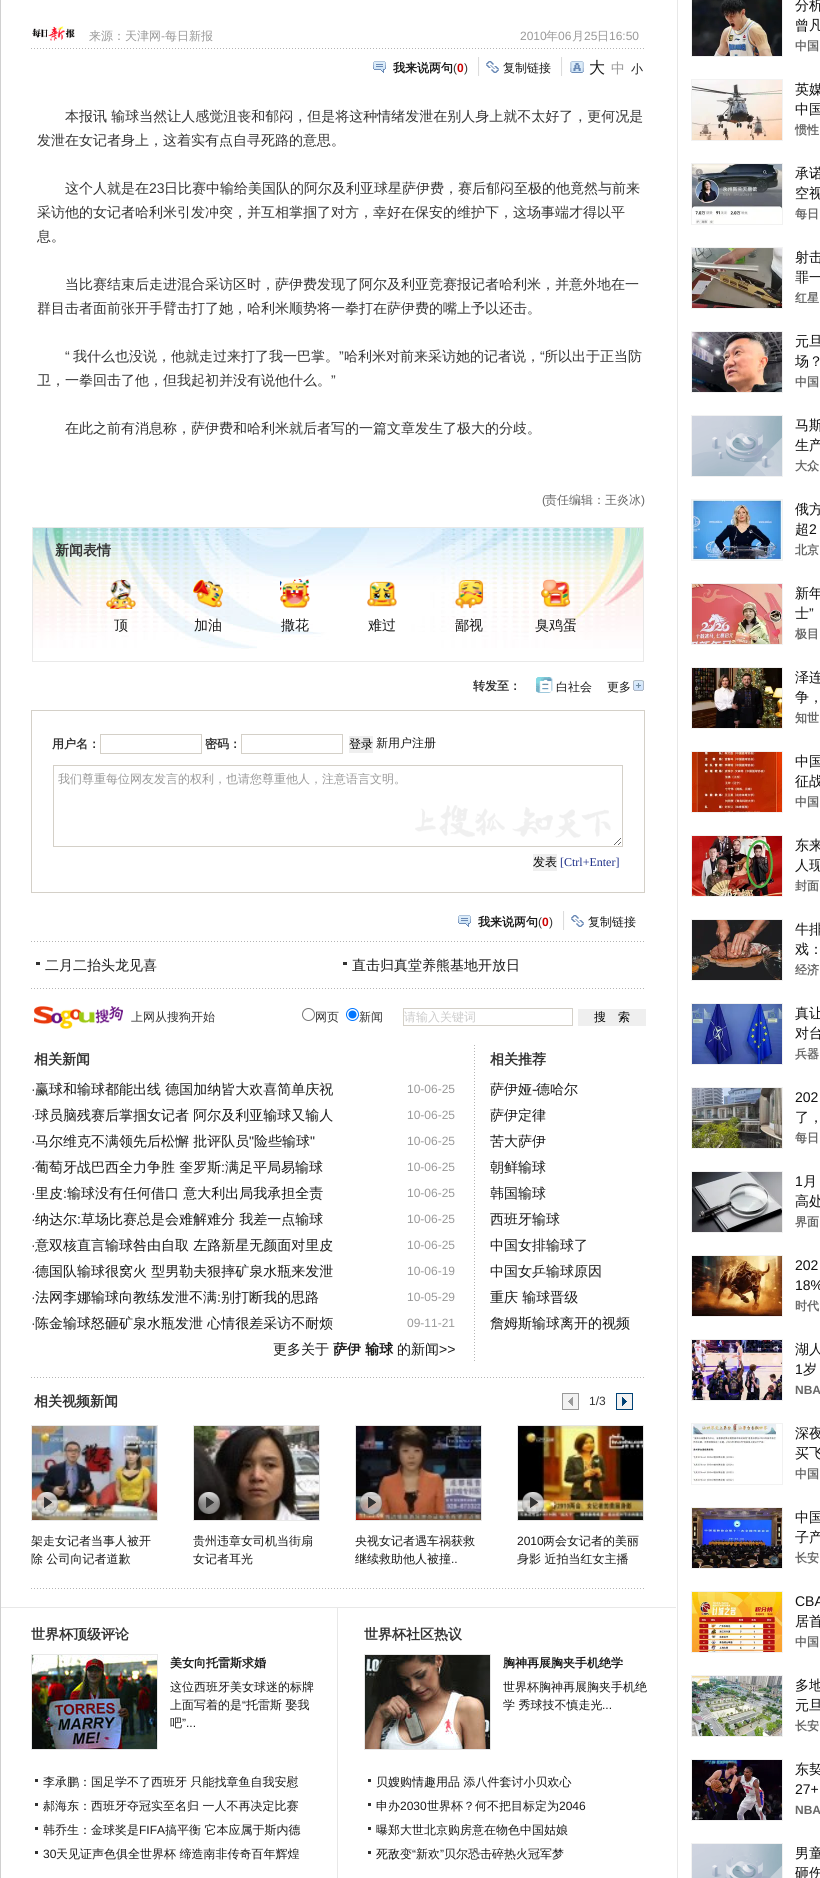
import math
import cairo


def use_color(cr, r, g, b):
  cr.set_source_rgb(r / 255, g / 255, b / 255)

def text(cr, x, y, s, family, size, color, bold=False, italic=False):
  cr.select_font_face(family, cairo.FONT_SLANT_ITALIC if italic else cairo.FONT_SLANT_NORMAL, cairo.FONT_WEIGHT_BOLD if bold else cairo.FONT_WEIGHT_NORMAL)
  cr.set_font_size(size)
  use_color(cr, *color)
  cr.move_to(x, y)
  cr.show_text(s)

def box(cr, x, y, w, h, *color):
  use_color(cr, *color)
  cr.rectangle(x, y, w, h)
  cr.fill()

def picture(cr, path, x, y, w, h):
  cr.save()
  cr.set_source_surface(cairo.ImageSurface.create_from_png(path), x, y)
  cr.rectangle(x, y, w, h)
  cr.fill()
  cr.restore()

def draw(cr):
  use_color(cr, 255, 255, 255)
  cr.paint()
  box(cr, 677, 0, 1, 1878, 232, 232, 232)
  box(cr, 0, 0, 1, 1878, 208, 208, 208)
  picture(cr, "img_01.png", 32, 26, 43, 15)
  picture(cr, "img_02.png", 31, 48, 613, 1)
  picture(cr, "img_03.png", 373, 61, 13, 12)
  picture(cr, "img_04.png", 478, 57, 21, 19)
  picture(cr, "img_05.png", 561, 57, 23, 19)
  picture(cr, "img_06.png", 33, 528, 610, 121)
  cr.rectangle(32.5, 527.5, 611, 134)
  use_color(cr, 233, 233, 233)
  cr.set_line_width(1)
  cr.stroke()
  picture(cr, "img_07.png", 106, 579, 30, 30)
  picture(cr, "img_08.png", 193, 579, 30, 29)
  picture(cr, "img_09.png", 280, 579, 30, 30)
  picture(cr, "img_10.png", 367, 581, 30, 26)
  picture(cr, "img_11.png", 455, 580, 29, 29)
  picture(cr, "img_12.png", 541, 579, 30, 29)
  picture(cr, "img_13.png", 536, 677, 17, 16)
  picture(cr, "img_14.png", 633, 680, 11, 11)
  cr.rectangle(31.5, 710.5, 613, 182)
  use_color(cr, 212, 208, 200)
  cr.stroke()
  cr.rectangle(100.5, 734.5, 101, 19)
  cr.stroke()
  cr.rectangle(241.5, 734.5, 101, 19)
  cr.stroke()
  box(cr, 349, 736, 24, 17, 239, 239, 239)
  picture(cr, "img_15.png", 415, 805, 206, 40)
  cr.rectangle(53.5, 765.5, 569, 81)
  use_color(cr, 212, 208, 200)
  cr.stroke()
  box(cr, 533, 854, 24, 17, 239, 239, 239)
  picture(cr, "img_03.png", 458, 915, 13, 12)
  picture(cr, "img_04.png", 563, 911, 21, 19)
  picture(cr, "img_02.png", 31, 941, 613, 1)
  box(cr, 36, 962, 4, 3, 51, 51, 51)
  box(cr, 343, 962, 4, 3, 51, 51, 51)
  picture(cr, "img_02.png", 31, 988, 613, 1)
  picture(cr, "img_16.png", 34, 1006, 89, 23)
  cr.arc(308.5, 1014.5, 6, 0, 2 * math.pi)
  use_color(cr, 118, 118, 118)
  cr.stroke()
  cr.arc(352.5, 1014.5, 6, 0, 2 * math.pi)
  use_color(cr, 0, 117, 255)
  cr.stroke()
  cr.arc(352.5, 1014.5, 4, 0, 2 * math.pi)
  cr.fill()
  cr.rectangle(403.5, 1008.5, 169, 17)
  use_color(cr, 212, 208, 200)
  cr.stroke()
  box(cr, 578, 1009, 68, 17, 239, 239, 239)
  picture(cr, "img_17.png", 474, 1045, 1, 316)
  picture(cr, "img_02.png", 31, 1377, 613, 1)
  picture(cr, "img_18.png", 562, 1393, 17, 17)
  picture(cr, "img_19.png", 616, 1393, 17, 17)
  cr.rectangle(31.5, 1425.5, 126, 95)
  use_color(cr, 232, 232, 232)
  cr.stroke()
  picture(cr, "img_20.png", 32, 1426, 125, 94)
  picture(cr, "img_21.png", 36, 1492, 22, 24)
  cr.rectangle(193.5, 1425.5, 126, 95)
  cr.stroke()
  picture(cr, "img_22.png", 194, 1426, 125, 94)
  picture(cr, "img_23.png", 198, 1492, 22, 23)
  cr.rectangle(355.5, 1425.5, 126, 95)
  cr.stroke()
  picture(cr, "img_24.png", 356, 1426, 125, 94)
  picture(cr, "img_25.png", 360, 1492, 22, 24)
  cr.rectangle(517.5, 1425.5, 126, 95)
  cr.stroke()
  picture(cr, "img_26.png", 518, 1426, 125, 94)
  picture(cr, "img_27.png", 522, 1492, 22, 24)
  picture(cr, "img_02.png", 31, 1588, 613, 1)
  box(cr, 1, 1607, 675, 1, 232, 232, 232)
  cr.rectangle(31.5, 1654.5, 126, 95)
  cr.stroke()
  picture(cr, "img_28.png", 32, 1655, 125, 94)
  box(cr, 35, 1779, 3, 3, 51, 51, 51)
  box(cr, 35, 1803, 3, 3, 51, 51, 51)
  box(cr, 35, 1827, 3, 3, 51, 51, 51)
  box(cr, 35, 1851, 3, 3, 51, 51, 51)
  box(cr, 337, 1608, 1, 270, 232, 232, 232)
  cr.rectangle(364.5, 1654.5, 126, 95)
  cr.stroke()
  picture(cr, "img_29.png", 365, 1655, 125, 94)
  box(cr, 368, 1779, 3, 3, 51, 51, 51)
  box(cr, 368, 1803, 3, 3, 51, 51, 51)
  box(cr, 368, 1827, 3, 3, 51, 51, 51)
  box(cr, 368, 1851, 3, 3, 51, 51, 51)
  cr.rectangle(691.5, -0.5, 91, 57)
  use_color(cr, 242, 242, 242)
  cr.stroke()
  picture(cr, "img_30.png", 692, 0, 90, 56)
  cr.rectangle(691.5, 79.5, 91, 61)
  cr.stroke()
  picture(cr, "img_31.png", 692, 80, 90, 60)
  cr.rectangle(691.5, 163.5, 91, 61)
  cr.stroke()
  picture(cr, "img_32.png", 692, 164, 90, 60)
  cr.rectangle(691.5, 247.5, 91, 61)
  cr.stroke()
  picture(cr, "img_33.png", 692, 248, 90, 60)
  cr.rectangle(691.5, 331.5, 91, 61)
  cr.stroke()
  picture(cr, "img_34.png", 692, 332, 90, 60)
  cr.rectangle(691.5, 415.5, 91, 61)
  cr.stroke()
  picture(cr, "img_35.png", 692, 416, 90, 60)
  cr.rectangle(691.5, 499.5, 91, 61)
  cr.stroke()
  picture(cr, "img_36.png", 692, 500, 90, 60)
  cr.rectangle(691.5, 583.5, 91, 61)
  cr.stroke()
  picture(cr, "img_37.png", 692, 584, 90, 60)
  cr.rectangle(691.5, 667.5, 91, 61)
  cr.stroke()
  picture(cr, "img_38.png", 692, 668, 90, 60)
  cr.rectangle(691.5, 751.5, 91, 61)
  cr.stroke()
  picture(cr, "img_39.png", 692, 752, 90, 60)
  cr.rectangle(691.5, 835.5, 91, 61)
  cr.stroke()
  picture(cr, "img_40.png", 692, 836, 90, 60)
  cr.rectangle(691.5, 919.5, 91, 61)
  cr.stroke()
  picture(cr, "img_41.png", 692, 920, 90, 60)
  cr.rectangle(691.5, 1003.5, 91, 61)
  cr.stroke()
  picture(cr, "img_42.png", 692, 1004, 90, 60)
  cr.rectangle(691.5, 1087.5, 91, 61)
  cr.stroke()
  picture(cr, "img_43.png", 692, 1088, 90, 60)
  cr.rectangle(691.5, 1171.5, 91, 61)
  cr.stroke()
  picture(cr, "img_44.png", 692, 1172, 90, 60)
  cr.rectangle(691.5, 1255.5, 91, 61)
  cr.stroke()
  picture(cr, "img_45.png", 692, 1256, 90, 60)
  cr.rectangle(691.5, 1339.5, 91, 61)
  cr.stroke()
  picture(cr, "img_46.png", 692, 1340, 90, 60)
  cr.rectangle(691.5, 1423.5, 91, 61)
  cr.stroke()
  picture(cr, "img_47.png", 692, 1424, 85, 58)
  cr.rectangle(691.5, 1507.5, 91, 61)
  cr.stroke()
  picture(cr, "img_48.png", 692, 1508, 90, 60)
  cr.rectangle(691.5, 1591.5, 91, 61)
  cr.stroke()
  picture(cr, "img_49.png", 692, 1592, 90, 60)
  cr.rectangle(691.5, 1675.5, 91, 61)
  cr.stroke()
  picture(cr, "img_50.png", 692, 1676, 90, 60)
  cr.rectangle(691.5, 1759.5, 91, 61)
  cr.stroke()
  picture(cr, "img_51.png", 692, 1760, 90, 60)
  cr.rectangle(691.5, 1843.5, 91, 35)
  cr.stroke()
  picture(cr, "img_52.png", 692, 1844, 90, 34)
  text(cr, 89, 40, "来源：天津网", "WenQuanYi Zen Hei Medium", 12, (153, 153, 153))
  text(cr, 161, 40, "-", "Liberation Sans", 12, (153, 153, 153))
  text(cr, 165, 40, "每日新报", "WenQuanYi Zen Hei Medium", 12, (153, 153, 153))
  text(cr, 520, 40, "2010", "Liberation Sans", 12, (153, 153, 153))
  text(cr, 546, 40, "年", "WenQuanYi Zen Hei Medium", 12, (153, 153, 153))
  text(cr, 558, 40, "06", "Liberation Sans", 12, (153, 153, 153))
  text(cr, 572, 40, "月", "WenQuanYi Zen Hei Medium", 12, (153, 153, 153))
  text(cr, 584, 40, "25", "Liberation Sans", 12, (153, 153, 153))
  text(cr, 597, 40, "日", "WenQuanYi Zen Hei Medium", 12, (153, 153, 153))
  text(cr, 609, 40, "16:50", "Liberation Sans", 12, (153, 153, 153))
  text(cr, 393, 72, "我来说两句", "WenQuanYi Zen Hei", 12, (25, 25, 25), bold=True)
  text(cr, 453, 72, "(", "Liberation Sans", 12, (51, 51, 51))
  text(cr, 457, 72, "0", "Liberation Sans", 12, (204, 0, 0), bold=True)
  text(cr, 464, 72, ")", "Liberation Sans", 12, (51, 51, 51))
  text(cr, 503, 72, "复制链接", "WenQuanYi Zen Hei Medium", 12, (25, 25, 25))
  text(cr, 589, 73, "大", "WenQuanYi Zen Hei Medium", 16, (25, 25, 25))
  text(cr, 611, 73, "中", "WenQuanYi Zen Hei Medium", 14, (153, 153, 153))
  text(cr, 631, 73, "小", "WenQuanYi Zen Hei Medium", 12, (25, 25, 25))
  text(cr, 65, 121, "本报讯 输球当然让人感觉沮丧和郁闷，但是将这种情绪发泄在别人身上就不太好了，更何况是", "WenQuanYi Zen Hei Medium", 14, (51, 51, 51))
  text(cr, 37, 145, "发泄在女记者身上，这着实有点自寻死路的意思。", "WenQuanYi Zen Hei Medium", 14, (51, 51, 51))
  text(cr, 65, 193, "这个人就是在", "WenQuanYi Zen Hei Medium", 14, (51, 51, 51))
  text(cr, 149, 193, "23", "Liberation Sans", 14, (51, 51, 51))
  text(cr, 164, 193, "日比赛中输给美国队的阿尔及利亚球星萨伊费，赛后郁闷至极的他竟然与前来", "WenQuanYi Zen Hei Medium", 14, (51, 51, 51))
  text(cr, 37, 217, "采访他的女记者哈利米引发冲突，并互相掌掴了对方，幸好在保安的维护下，这场事端才得以平", "WenQuanYi Zen Hei Medium", 14, (51, 51, 51))
  text(cr, 37, 241, "息。", "WenQuanYi Zen Hei Medium", 14, (51, 51, 51))
  text(cr, 65, 289, "当比赛结束后走进混合采访区时，萨伊费发现了阿尔及利亚竞赛报记者哈利米，并意外地在一", "WenQuanYi Zen Hei Medium", 14, (51, 51, 51))
  text(cr, 37, 313, "群目击者面前张开手臂击打了她，哈利米顺势将一拳打在萨伊费的嘴上予以还击。", "WenQuanYi Zen Hei Medium", 14, (51, 51, 51))
  text(cr, 65, 361, "“", "Liberation Sans", 14, (51, 51, 51))
  text(cr, 73, 361, "我什么也没说，他就走过来打了我一巴掌。", "WenQuanYi Zen Hei Medium", 14, (51, 51, 51))
  text(cr, 339, 361, "”", "Liberation Sans", 14, (51, 51, 51))
  text(cr, 344, 361, "哈利米对前来采访她的记者说，", "WenQuanYi Zen Hei Medium", 14, (51, 51, 51))
  text(cr, 540, 361, "“", "Liberation Sans", 14, (51, 51, 51))
  text(cr, 544, 361, "所以出于正当防", "WenQuanYi Zen Hei Medium", 14, (51, 51, 51))
  text(cr, 37, 385, "卫，一拳回击了他，但我起初并没有说他什么。", "WenQuanYi Zen Hei Medium", 14, (51, 51, 51))
  text(cr, 331, 385, "”", "Liberation Sans", 14, (51, 51, 51))
  text(cr, 65, 433, "在此之前有消息称，萨伊费和哈利米就后者写的一篇文章发生了极大的分歧。", "WenQuanYi Zen Hei Medium", 14, (51, 51, 51))
  text(cr, 542, 504, "(", "Liberation Sans", 12, (102, 102, 102))
  text(cr, 545, 504, "责任编辑：王炎冰", "WenQuanYi Zen Hei Medium", 12, (102, 102, 102))
  text(cr, 641, 504, ")", "Liberation Sans", 12, (102, 102, 102))
  text(cr, 55, 555, "新闻表情", "WenQuanYi Zen Hei", 14, (51, 51, 51), bold=True)
  text(cr, 114, 630, "顶", "WenQuanYi Zen Hei Medium", 14, (25, 25, 25))
  text(cr, 194, 630, "加油", "WenQuanYi Zen Hei Medium", 14, (25, 25, 25))
  text(cr, 281, 630, "撒花", "WenQuanYi Zen Hei Medium", 14, (25, 25, 25))
  text(cr, 368, 630, "难过", "WenQuanYi Zen Hei Medium", 14, (25, 25, 25))
  text(cr, 455, 630, "鄙视", "WenQuanYi Zen Hei Medium", 14, (25, 25, 25))
  text(cr, 535, 630, "臭鸡蛋", "WenQuanYi Zen Hei Medium", 14, (25, 25, 25))
  text(cr, 473, 690, "转发至：", "WenQuanYi Zen Hei", 12, (51, 51, 51), bold=True)
  text(cr, 556, 691, "白社会", "WenQuanYi Zen Hei Medium", 12, (25, 25, 25))
  text(cr, 607, 691, "更多", "WenQuanYi Zen Hei Medium", 12, (25, 25, 25))
  text(cr, 52, 748, "用户名：", "WenQuanYi Zen Hei", 12, (51, 51, 51), bold=True)
  text(cr, 205, 748, "密码：", "WenQuanYi Zen Hei", 12, (51, 51, 51), bold=True)
  text(cr, 349, 748, "登录", "WenQuanYi Zen Hei Medium", 12, (0, 0, 0))
  text(cr, 376, 747, "新用户注册", "WenQuanYi Zen Hei Medium", 12, (25, 25, 25))
  text(cr, 58, 783, "我们尊重每位网友发言的权利，也请您尊重他人，注意语言文明。", "WenQuanYi Zen Hei Medium", 12, (153, 153, 153))
  text(cr, 533, 866, "发表", "WenQuanYi Zen Hei Medium", 12, (0, 0, 0))
  text(cr, 560, 866, "[Ctrl+Enter]", "Liberation Serif", 12, (28, 46, 136))
  text(cr, 478, 926, "我来说两句", "WenQuanYi Zen Hei", 12, (25, 25, 25), bold=True)
  text(cr, 538, 926, "(", "Liberation Sans", 12, (51, 51, 51))
  text(cr, 542, 926, "0", "Liberation Sans", 12, (204, 0, 0), bold=True)
  text(cr, 549, 926, ")", "Liberation Sans", 12, (51, 51, 51))
  text(cr, 588, 926, "复制链接", "WenQuanYi Zen Hei Medium", 12, (25, 25, 25))
  text(cr, 45, 970, "二月二抬头龙见喜", "WenQuanYi Zen Hei Medium", 14, (25, 25, 25))
  text(cr, 352, 970, "直击归真堂养熊基地开放日", "WenQuanYi Zen Hei Medium", 14, (25, 25, 25))
  text(cr, 131, 1021, "上网从搜狗开始", "WenQuanYi Zen Hei Medium", 12, (51, 51, 51))
  text(cr, 315, 1021, "网页", "WenQuanYi Zen Hei Medium", 12, (51, 51, 51))
  text(cr, 359, 1021, "新闻", "WenQuanYi Zen Hei Medium", 12, (51, 51, 51))
  text(cr, 404, 1021, "请输入关键词", "WenQuanYi Zen Hei Medium", 12, (204, 204, 204))
  text(cr, 594, 1021, "搜　索", "WenQuanYi Zen Hei Medium", 12, (0, 0, 0))
  text(cr, 34, 1064, "相关新闻", "WenQuanYi Zen Hei", 14, (51, 51, 51), bold=True)
  text(cr, 31, 1094, "·", "Liberation Sans", 14, (51, 51, 51))
  text(cr, 35, 1094, "赢球和输球都能出线 德国加纳皆大欢喜简单庆祝", "WenQuanYi Zen Hei Medium", 14, (25, 25, 25))
  text(cr, 407, 1093, "10-06-25", "Liberation Sans", 12, (153, 153, 153))
  text(cr, 31, 1120, "·", "Liberation Sans", 14, (51, 51, 51))
  text(cr, 35, 1120, "球员脑残赛后掌掴女记者 阿尔及利亚输球又输人", "WenQuanYi Zen Hei Medium", 14, (25, 25, 25))
  text(cr, 407, 1119, "10-06-25", "Liberation Sans", 12, (153, 153, 153))
  text(cr, 31, 1146, "·", "Liberation Sans", 14, (51, 51, 51))
  text(cr, 35, 1146, "马尔维克不满领先后松懈 批评队员", "WenQuanYi Zen Hei Medium", 14, (25, 25, 25))
  text(cr, 249, 1146, "\"", "Liberation Sans", 14, (25, 25, 25))
  text(cr, 254, 1146, "险些输球", "WenQuanYi Zen Hei Medium", 14, (25, 25, 25))
  text(cr, 310, 1146, "\"", "Liberation Sans", 14, (25, 25, 25))
  text(cr, 407, 1145, "10-06-25", "Liberation Sans", 12, (153, 153, 153))
  text(cr, 31, 1172, "·", "Liberation Sans", 14, (51, 51, 51))
  text(cr, 35, 1172, "葡萄牙战巴西全力争胜 奎罗斯", "WenQuanYi Zen Hei Medium", 14, (25, 25, 25))
  text(cr, 221, 1172, ":", "Liberation Sans", 14, (25, 25, 25))
  text(cr, 225, 1172, "满足平局易输球", "WenQuanYi Zen Hei Medium", 14, (25, 25, 25))
  text(cr, 407, 1171, "10-06-25", "Liberation Sans", 12, (153, 153, 153))
  text(cr, 31, 1198, "·", "Liberation Sans", 14, (51, 51, 51))
  text(cr, 35, 1198, "里皮", "WenQuanYi Zen Hei Medium", 14, (25, 25, 25))
  text(cr, 63, 1198, ":", "Liberation Sans", 14, (25, 25, 25))
  text(cr, 67, 1198, "输球没有任何借口 意大利出局我承担全责", "WenQuanYi Zen Hei Medium", 14, (25, 25, 25))
  text(cr, 407, 1197, "10-06-25", "Liberation Sans", 12, (153, 153, 153))
  text(cr, 31, 1224, "·", "Liberation Sans", 14, (51, 51, 51))
  text(cr, 35, 1224, "纳达尔", "WenQuanYi Zen Hei Medium", 14, (25, 25, 25))
  text(cr, 77, 1224, ":", "Liberation Sans", 14, (25, 25, 25))
  text(cr, 81, 1224, "草场比赛总是会难解难分 我差一点输球", "WenQuanYi Zen Hei Medium", 14, (25, 25, 25))
  text(cr, 407, 1223, "10-06-25", "Liberation Sans", 12, (153, 153, 153))
  text(cr, 31, 1250, "·", "Liberation Sans", 14, (51, 51, 51))
  text(cr, 35, 1250, "意双核直言输球咎由自取 左路新星无颜面对里皮", "WenQuanYi Zen Hei Medium", 14, (25, 25, 25))
  text(cr, 407, 1249, "10-06-25", "Liberation Sans", 12, (153, 153, 153))
  text(cr, 31, 1276, "·", "Liberation Sans", 14, (51, 51, 51))
  text(cr, 35, 1276, "德国队输球很窝火 型男勒夫狠摔矿泉水瓶来发泄", "WenQuanYi Zen Hei Medium", 14, (25, 25, 25))
  text(cr, 407, 1275, "10-06-19", "Liberation Sans", 12, (153, 153, 153))
  text(cr, 31, 1302, "·", "Liberation Sans", 14, (51, 51, 51))
  text(cr, 35, 1302, "法网李娜输球向教练发泄不满", "WenQuanYi Zen Hei Medium", 14, (25, 25, 25))
  text(cr, 217, 1302, ":", "Liberation Sans", 14, (25, 25, 25))
  text(cr, 221, 1302, "别打断我的思路", "WenQuanYi Zen Hei Medium", 14, (25, 25, 25))
  text(cr, 407, 1301, "10-05-29", "Liberation Sans", 12, (153, 153, 153))
  text(cr, 31, 1328, "·", "Liberation Sans", 14, (51, 51, 51))
  text(cr, 35, 1328, "陈金输球怒砸矿泉水瓶发泄 心情很差采访不耐烦", "WenQuanYi Zen Hei Medium", 14, (25, 25, 25))
  text(cr, 407, 1327, "09-11-21", "Liberation Sans", 12, (153, 153, 153))
  text(cr, 273, 1354, "更多关于", "WenQuanYi Zen Hei Medium", 14, (25, 25, 25))
  text(cr, 333, 1354, "萨伊 输球", "WenQuanYi Zen Hei", 14, (25, 25, 25), bold=True)
  text(cr, 397, 1354, "的新闻", "WenQuanYi Zen Hei Medium", 14, (25, 25, 25))
  text(cr, 439, 1354, ">>", "Liberation Sans", 14, (25, 25, 25))
  text(cr, 490, 1064, "相关推荐", "WenQuanYi Zen Hei", 14, (51, 51, 51), bold=True)
  text(cr, 490, 1094, "萨伊娅", "WenQuanYi Zen Hei Medium", 14, (25, 25, 25))
  text(cr, 532, 1094, "-", "Liberation Sans", 14, (25, 25, 25))
  text(cr, 536, 1094, "德哈尔", "WenQuanYi Zen Hei Medium", 14, (25, 25, 25))
  text(cr, 490, 1120, "萨伊定律", "WenQuanYi Zen Hei Medium", 14, (25, 25, 25))
  text(cr, 490, 1146, "苦大萨伊", "WenQuanYi Zen Hei Medium", 14, (25, 25, 25))
  text(cr, 490, 1172, "朝鲜输球", "WenQuanYi Zen Hei Medium", 14, (25, 25, 25))
  text(cr, 490, 1198, "韩国输球", "WenQuanYi Zen Hei Medium", 14, (25, 25, 25))
  text(cr, 490, 1224, "西班牙输球", "WenQuanYi Zen Hei Medium", 14, (25, 25, 25))
  text(cr, 490, 1250, "中国女排输球了", "WenQuanYi Zen Hei Medium", 14, (25, 25, 25))
  text(cr, 490, 1276, "中国女乒输球原因", "WenQuanYi Zen Hei Medium", 14, (25, 25, 25))
  text(cr, 490, 1302, "重庆 输球晋级", "WenQuanYi Zen Hei Medium", 14, (25, 25, 25))
  text(cr, 490, 1328, "詹姆斯输球离开的视频", "WenQuanYi Zen Hei Medium", 14, (25, 25, 25))
  text(cr, 34, 1406, "相关视频新闻", "WenQuanYi Zen Hei", 14, (51, 51, 51), bold=True)
  text(cr, 589, 1405, "1/3", "Liberation Sans", 12, (51, 51, 51))
  text(cr, 31, 1545, "架走女记者当事人被开", "WenQuanYi Zen Hei Medium", 12, (25, 25, 25))
  text(cr, 31, 1563, "除 公司向记者道歉", "WenQuanYi Zen Hei Medium", 12, (25, 25, 25))
  text(cr, 193, 1545, "贵州违章女司机当街扇", "WenQuanYi Zen Hei Medium", 12, (25, 25, 25))
  text(cr, 193, 1563, "女记者耳光", "WenQuanYi Zen Hei Medium", 12, (25, 25, 25))
  text(cr, 355, 1545, "央视女记者遇车祸获救", "WenQuanYi Zen Hei Medium", 12, (25, 25, 25))
  text(cr, 355, 1563, "继续救助他人被撞", "WenQuanYi Zen Hei Medium", 12, (25, 25, 25))
  text(cr, 451, 1563, "..", "Liberation Sans", 12, (25, 25, 25))
  text(cr, 517, 1545, "2010", "Liberation Sans", 12, (25, 25, 25))
  text(cr, 543, 1545, "两会女记者的美丽", "WenQuanYi Zen Hei Medium", 12, (25, 25, 25))
  text(cr, 517, 1563, "身影 近拍当红女主播", "WenQuanYi Zen Hei Medium", 12, (25, 25, 25))
  text(cr, 31, 1639, "世界杯顶级评论", "WenQuanYi Zen Hei", 14, (51, 51, 51), bold=True)
  text(cr, 170, 1667, "美女向托雷斯求婚", "WenQuanYi Zen Hei", 12, (25, 25, 25), bold=True)
  text(cr, 170, 1691, "这位西班牙美女球迷的标牌", "WenQuanYi Zen Hei Medium", 12, (25, 25, 25))
  text(cr, 170, 1709, "上面写着的是", "WenQuanYi Zen Hei Medium", 12, (25, 25, 25))
  text(cr, 242, 1709, "“", "Liberation Sans", 12, (25, 25, 25))
  text(cr, 246, 1709, "托雷斯 娶我", "WenQuanYi Zen Hei Medium", 12, (25, 25, 25))
  text(cr, 170, 1727, "吧", "WenQuanYi Zen Hei Medium", 12, (25, 25, 25))
  text(cr, 182, 1727, "”...", "Liberation Sans", 12, (25, 25, 25))
  text(cr, 43, 1786, "李承鹏：国足学不了西班牙 只能找章鱼自我安慰", "WenQuanYi Zen Hei Medium", 12, (25, 25, 25))
  text(cr, 43, 1810, "郝海东：西班牙夺冠实至名归 一人不再决定比赛", "WenQuanYi Zen Hei Medium", 12, (25, 25, 25))
  text(cr, 43, 1834, "韩乔生：金球奖是", "WenQuanYi Zen Hei Medium", 12, (25, 25, 25))
  text(cr, 139, 1834, "FIFA", "Liberation Sans", 12, (25, 25, 25))
  text(cr, 165, 1834, "搞平衡 它本应属于斯内德", "WenQuanYi Zen Hei Medium", 12, (25, 25, 25))
  text(cr, 43, 1858, "30", "Liberation Sans", 12, (25, 25, 25))
  text(cr, 56, 1858, "天见证声色俱全世界杯 缔造南非传奇百年辉煌", "WenQuanYi Zen Hei Medium", 12, (25, 25, 25))
  text(cr, 364, 1639, "世界杯社区热议", "WenQuanYi Zen Hei", 14, (51, 51, 51), bold=True)
  text(cr, 503, 1667, "胸神再展胸夹手机绝学", "WenQuanYi Zen Hei", 12, (25, 25, 25), bold=True)
  text(cr, 503, 1691, "世界杯胸神再展胸夹手机绝", "WenQuanYi Zen Hei Medium", 12, (25, 25, 25))
  text(cr, 503, 1709, "学 秀球技不慎走光", "WenQuanYi Zen Hei Medium", 12, (25, 25, 25))
  text(cr, 602, 1709, "...", "Liberation Sans", 12, (25, 25, 25))
  text(cr, 376, 1786, "贝嫂购情趣用品 添八件套讨小贝欢心", "WenQuanYi Zen Hei Medium", 12, (25, 25, 25))
  text(cr, 376, 1810, "申办", "WenQuanYi Zen Hei Medium", 12, (25, 25, 25))
  text(cr, 400, 1810, "2030", "Liberation Sans", 12, (25, 25, 25))
  text(cr, 427, 1810, "世界杯？何不把目标定为", "WenQuanYi Zen Hei Medium", 12, (25, 25, 25))
  text(cr, 559, 1810, "2046", "Liberation Sans", 12, (25, 25, 25))
  text(cr, 376, 1834, "曝郑大世北京购房意在物色中国姑娘", "WenQuanYi Zen Hei Medium", 12, (25, 25, 25))
  text(cr, 376, 1858, "死敌变", "WenQuanYi Zen Hei Medium", 12, (25, 25, 25))
  text(cr, 412, 1858, "“", "Liberation Sans", 12, (25, 25, 25))
  text(cr, 416, 1858, "新欢", "WenQuanYi Zen Hei Medium", 12, (25, 25, 25))
  text(cr, 440, 1858, "”", "Liberation Sans", 12, (25, 25, 25))
  text(cr, 444, 1858, "贝尔恐击碎热火冠军梦", "WenQuanYi Zen Hei Medium", 12, (25, 25, 25))
  text(cr, 795, 10, "分析", "WenQuanYi Zen Hei Medium", 14, (17, 17, 17))
  text(cr, 795, 30, "曾凡", "WenQuanYi Zen Hei Medium", 14, (17, 17, 17))
  text(cr, 795, 50, "中国", "WenQuanYi Zen Hei", 12, (102, 102, 102), bold=True)
  text(cr, 795, 94, "英媒", "WenQuanYi Zen Hei Medium", 14, (17, 17, 17))
  text(cr, 795, 114, "中国", "WenQuanYi Zen Hei Medium", 14, (17, 17, 17))
  text(cr, 795, 134, "惯性", "WenQuanYi Zen Hei", 12, (102, 102, 102), bold=True)
  text(cr, 795, 178, "承诺", "WenQuanYi Zen Hei Medium", 14, (17, 17, 17))
  text(cr, 795, 198, "空视", "WenQuanYi Zen Hei Medium", 14, (17, 17, 17))
  text(cr, 795, 218, "每日", "WenQuanYi Zen Hei", 12, (102, 102, 102), bold=True)
  text(cr, 795, 262, "射击", "WenQuanYi Zen Hei Medium", 14, (17, 17, 17))
  text(cr, 795, 282, "罪一", "WenQuanYi Zen Hei Medium", 14, (17, 17, 17))
  text(cr, 795, 302, "红星", "WenQuanYi Zen Hei", 12, (102, 102, 102), bold=True)
  text(cr, 795, 346, "元旦", "WenQuanYi Zen Hei Medium", 14, (17, 17, 17))
  text(cr, 795, 366, "场？", "WenQuanYi Zen Hei Medium", 14, (17, 17, 17))
  text(cr, 795, 386, "中国", "WenQuanYi Zen Hei", 12, (102, 102, 102), bold=True)
  text(cr, 795, 430, "马斯", "WenQuanYi Zen Hei Medium", 14, (17, 17, 17))
  text(cr, 795, 450, "生产", "WenQuanYi Zen Hei Medium", 14, (17, 17, 17))
  text(cr, 795, 470, "大众", "WenQuanYi Zen Hei", 12, (102, 102, 102), bold=True)
  text(cr, 795, 514, "俄方", "WenQuanYi Zen Hei Medium", 14, (17, 17, 17))
  text(cr, 795, 534, "超", "WenQuanYi Zen Hei Medium", 14, (17, 17, 17))
  text(cr, 809, 534, "2", "Liberation Sans", 14, (17, 17, 17))
  text(cr, 795, 554, "北京", "WenQuanYi Zen Hei", 12, (102, 102, 102), bold=True)
  text(cr, 795, 598, "新年", "WenQuanYi Zen Hei Medium", 14, (17, 17, 17))
  text(cr, 795, 618, "士", "WenQuanYi Zen Hei Medium", 14, (17, 17, 17))
  text(cr, 809, 618, "”", "Liberation Sans", 14, (17, 17, 17))
  text(cr, 795, 638, "极目", "WenQuanYi Zen Hei", 12, (102, 102, 102), bold=True)
  text(cr, 795, 682, "泽连", "WenQuanYi Zen Hei Medium", 14, (17, 17, 17))
  text(cr, 795, 702, "争，", "WenQuanYi Zen Hei Medium", 14, (17, 17, 17))
  text(cr, 795, 722, "知世", "WenQuanYi Zen Hei", 12, (102, 102, 102), bold=True)
  text(cr, 795, 766, "中国", "WenQuanYi Zen Hei Medium", 14, (17, 17, 17))
  text(cr, 795, 786, "征战", "WenQuanYi Zen Hei Medium", 14, (17, 17, 17))
  text(cr, 795, 806, "中国", "WenQuanYi Zen Hei", 12, (102, 102, 102), bold=True)
  text(cr, 795, 850, "东来", "WenQuanYi Zen Hei Medium", 14, (17, 17, 17))
  text(cr, 795, 870, "人现", "WenQuanYi Zen Hei Medium", 14, (17, 17, 17))
  text(cr, 795, 890, "封面", "WenQuanYi Zen Hei", 12, (102, 102, 102), bold=True)
  text(cr, 795, 934, "牛排", "WenQuanYi Zen Hei Medium", 14, (17, 17, 17))
  text(cr, 795, 954, "戏：", "WenQuanYi Zen Hei Medium", 14, (17, 17, 17))
  text(cr, 795, 974, "经济", "WenQuanYi Zen Hei", 12, (102, 102, 102), bold=True)
  text(cr, 795, 1018, "真让", "WenQuanYi Zen Hei Medium", 14, (17, 17, 17))
  text(cr, 795, 1038, "对台", "WenQuanYi Zen Hei Medium", 14, (17, 17, 17))
  text(cr, 795, 1058, "兵器", "WenQuanYi Zen Hei", 12, (102, 102, 102), bold=True)
  text(cr, 795, 1102, "202", "Liberation Sans", 14, (17, 17, 17))
  text(cr, 795, 1122, "了，", "WenQuanYi Zen Hei Medium", 14, (17, 17, 17))
  text(cr, 795, 1142, "每日", "WenQuanYi Zen Hei", 12, (102, 102, 102), bold=True)
  text(cr, 795, 1186, "1", "Liberation Sans", 14, (17, 17, 17))
  text(cr, 803, 1186, "月", "WenQuanYi Zen Hei Medium", 14, (17, 17, 17))
  text(cr, 795, 1206, "高处", "WenQuanYi Zen Hei Medium", 14, (17, 17, 17))
  text(cr, 795, 1226, "界面", "WenQuanYi Zen Hei", 12, (102, 102, 102), bold=True)
  text(cr, 795, 1270, "202", "Liberation Sans", 14, (17, 17, 17))
  text(cr, 795, 1290, "18%", "Liberation Sans", 14, (17, 17, 17))
  text(cr, 795, 1310, "时代", "WenQuanYi Zen Hei", 12, (102, 102, 102), bold=True)
  text(cr, 795, 1354, "湖人", "WenQuanYi Zen Hei Medium", 14, (17, 17, 17))
  text(cr, 795, 1374, "1", "Liberation Sans", 14, (17, 17, 17))
  text(cr, 803, 1374, "岁", "WenQuanYi Zen Hei Medium", 14, (17, 17, 17))
  text(cr, 795, 1394, "NBA", "Liberation Sans", 12, (102, 102, 102), bold=True)
  text(cr, 795, 1438, "深夜", "WenQuanYi Zen Hei Medium", 14, (17, 17, 17))
  text(cr, 795, 1458, "买飞", "WenQuanYi Zen Hei Medium", 14, (17, 17, 17))
  text(cr, 795, 1478, "中国", "WenQuanYi Zen Hei", 12, (102, 102, 102), bold=True)
  text(cr, 795, 1522, "中国", "WenQuanYi Zen Hei Medium", 14, (17, 17, 17))
  text(cr, 795, 1542, "子产", "WenQuanYi Zen Hei Medium", 14, (17, 17, 17))
  text(cr, 795, 1562, "长安", "WenQuanYi Zen Hei", 12, (102, 102, 102), bold=True)
  text(cr, 795, 1606, "CBA", "Liberation Sans", 14, (17, 17, 17))
  text(cr, 795, 1626, "居首", "WenQuanYi Zen Hei Medium", 14, (17, 17, 17))
  text(cr, 795, 1646, "中国", "WenQuanYi Zen Hei", 12, (102, 102, 102), bold=True)
  text(cr, 795, 1690, "多地", "WenQuanYi Zen Hei Medium", 14, (17, 17, 17))
  text(cr, 795, 1710, "元旦", "WenQuanYi Zen Hei Medium", 14, (17, 17, 17))
  text(cr, 795, 1730, "长安", "WenQuanYi Zen Hei", 12, (102, 102, 102), bold=True)
  text(cr, 795, 1774, "东契", "WenQuanYi Zen Hei Medium", 14, (17, 17, 17))
  text(cr, 795, 1794, "27+", "Liberation Sans", 14, (17, 17, 17))
  text(cr, 795, 1814, "NBA", "Liberation Sans", 12, (102, 102, 102), bold=True)
  text(cr, 795, 1858, "男童", "WenQuanYi Zen Hei Medium", 14, (17, 17, 17))
  text(cr, 795, 1878, "砸伤", "WenQuanYi Zen Hei Medium", 14, (17, 17, 17))


surface = cairo.ImageSurface(cairo.FORMAT_RGB24, 820, 1878)
cr = cairo.Context(surface)
options = cairo.FontOptions()
options.set_hint_metrics(cairo.HINT_METRICS_OFF)
options.set_hint_style(cairo.HINT_STYLE_NONE)
cr.set_font_options(options)
cr.set_miter_limit(4)
draw(cr)
surface.write_to_png("out.png")
